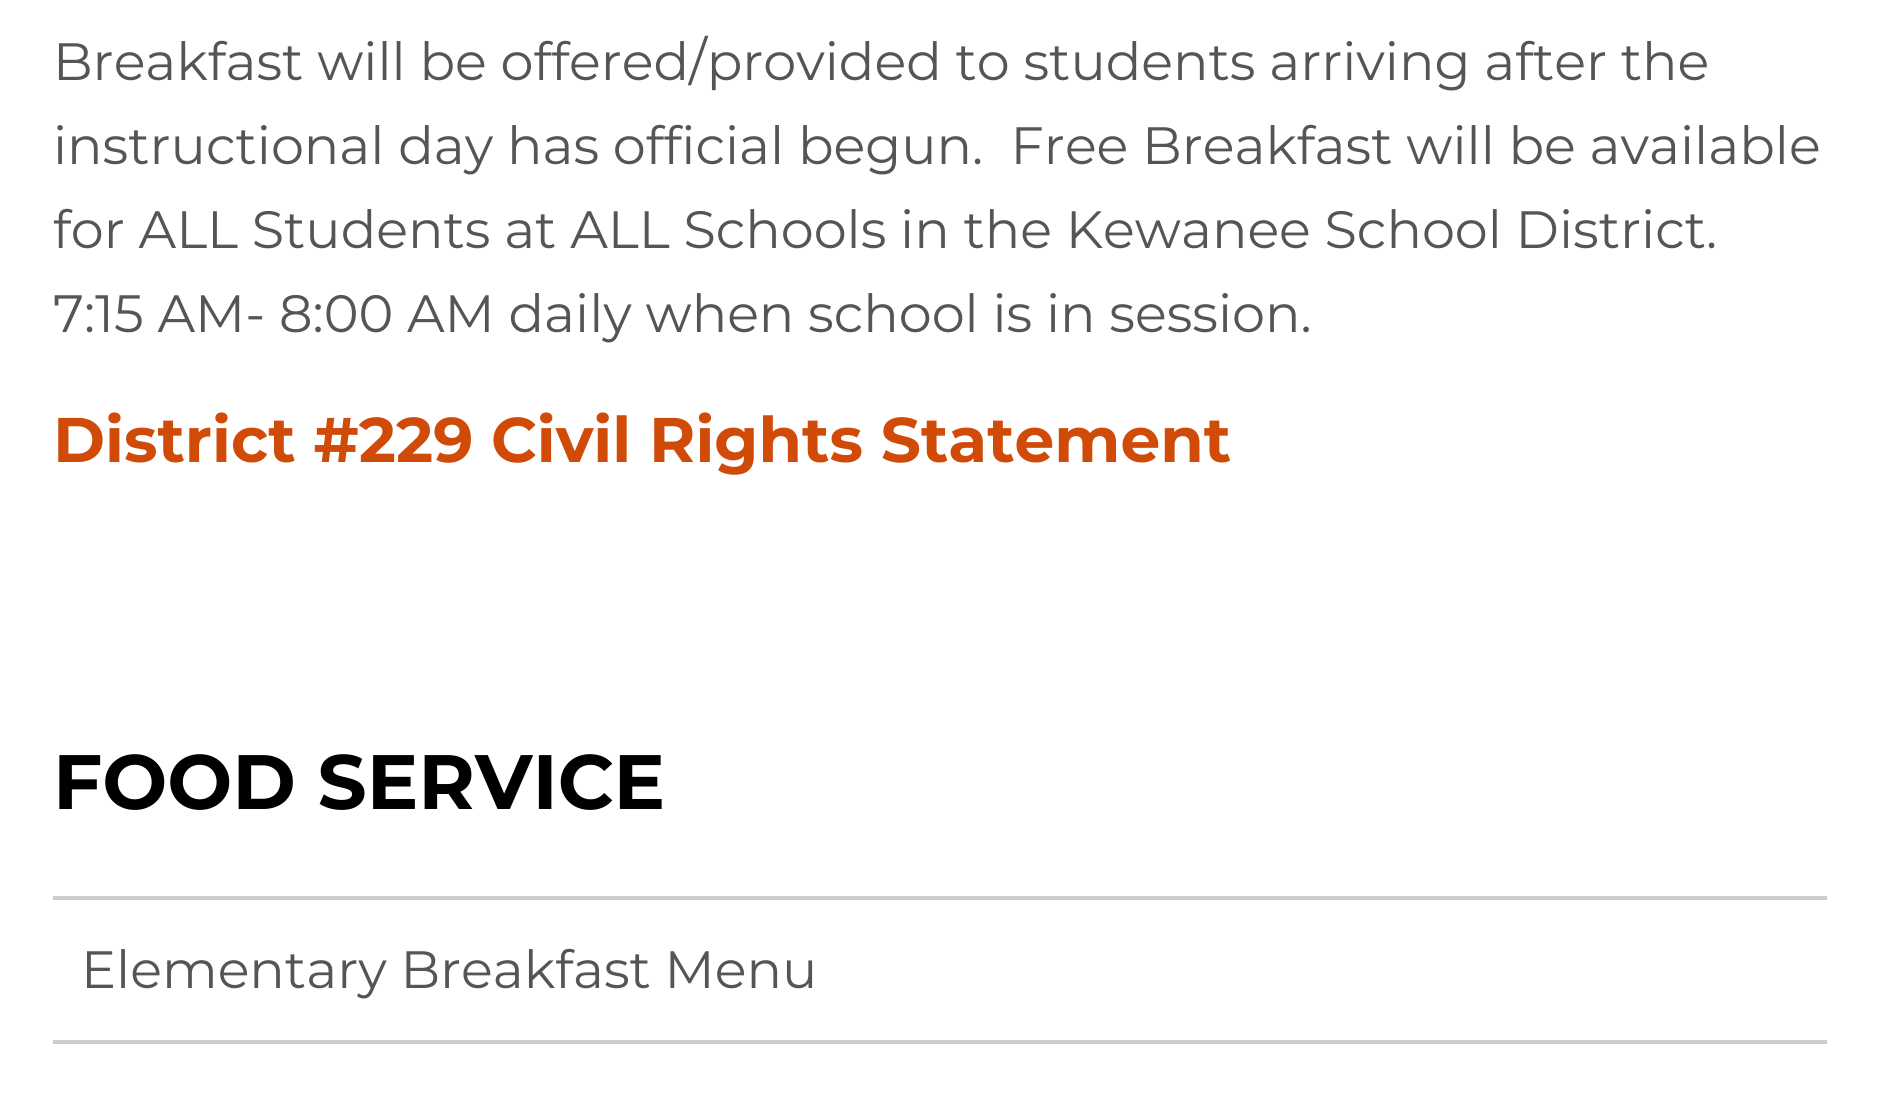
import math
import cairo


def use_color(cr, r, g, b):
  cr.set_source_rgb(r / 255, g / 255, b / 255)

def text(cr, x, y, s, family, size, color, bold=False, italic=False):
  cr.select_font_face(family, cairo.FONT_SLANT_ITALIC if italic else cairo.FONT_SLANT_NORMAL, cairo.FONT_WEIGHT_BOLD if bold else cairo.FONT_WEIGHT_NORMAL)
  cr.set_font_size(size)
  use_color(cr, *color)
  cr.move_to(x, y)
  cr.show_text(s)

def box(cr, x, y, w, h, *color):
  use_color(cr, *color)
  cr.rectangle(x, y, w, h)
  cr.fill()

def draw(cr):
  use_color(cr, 255, 255, 255)
  cr.paint()
  box(cr, 53, 896, 1774, 4, 204, 204, 204)
  box(cr, 53, 1040, 1774, 4, 204, 204, 204)
  text(cr, 53, 80, "Breakfast will be offered/provided to students arriving after the", "Montserrat", 52.5, (85, 85, 85))
  text(cr, 53, 164, "instructional day has official begun.  Free Breakfast will be available", "Montserrat", 52.5, (85, 85, 85))
  text(cr, 53, 248, "for ALL Students at ALL Schools in the Kewanee School District.", "Montserrat", 52.5, (85, 85, 85))
  text(cr, 53, 332, "7:15 AM- 8:00 AM daily when school is in session.", "Montserrat", 52.5, (85, 85, 85))
  text(cr, 53, 462, "District #229 Civil Rights Statement", "Montserrat", 63, (208, 74, 8), bold=True)
  text(cr, 53, 809, "FOOD SERVICE", "Montserrat", 77, (0, 0, 0), bold=True)
  text(cr, 81, 988, "Elementary Breakfast Menu", "Montserrat", 52.5, (85, 85, 85))


surface = cairo.ImageSurface(cairo.FORMAT_RGB24, 1879, 1104)
cr = cairo.Context(surface)
options = cairo.FontOptions()
options.set_hint_metrics(cairo.HINT_METRICS_OFF)
options.set_hint_style(cairo.HINT_STYLE_NONE)
cr.set_font_options(options)
cr.set_miter_limit(4)
draw(cr)
surface.write_to_png("out.png")
